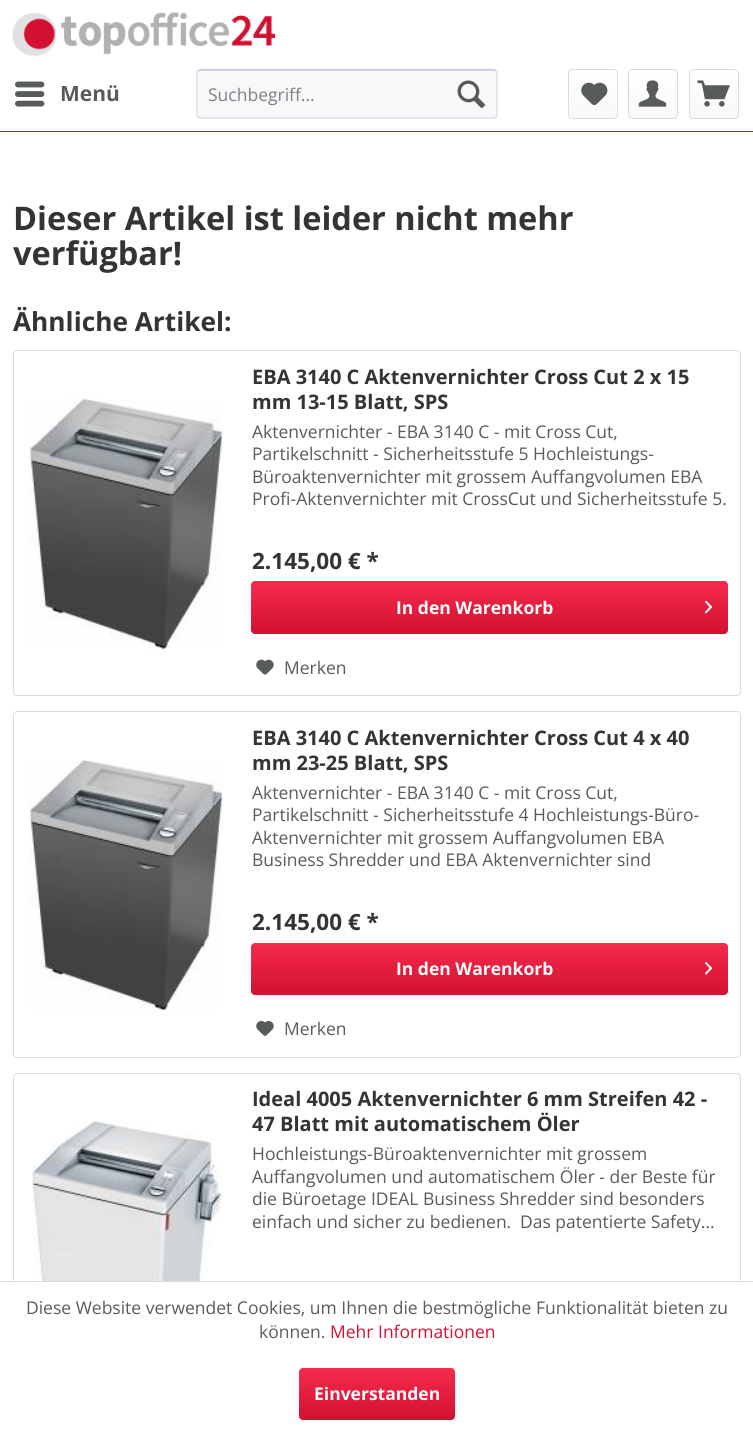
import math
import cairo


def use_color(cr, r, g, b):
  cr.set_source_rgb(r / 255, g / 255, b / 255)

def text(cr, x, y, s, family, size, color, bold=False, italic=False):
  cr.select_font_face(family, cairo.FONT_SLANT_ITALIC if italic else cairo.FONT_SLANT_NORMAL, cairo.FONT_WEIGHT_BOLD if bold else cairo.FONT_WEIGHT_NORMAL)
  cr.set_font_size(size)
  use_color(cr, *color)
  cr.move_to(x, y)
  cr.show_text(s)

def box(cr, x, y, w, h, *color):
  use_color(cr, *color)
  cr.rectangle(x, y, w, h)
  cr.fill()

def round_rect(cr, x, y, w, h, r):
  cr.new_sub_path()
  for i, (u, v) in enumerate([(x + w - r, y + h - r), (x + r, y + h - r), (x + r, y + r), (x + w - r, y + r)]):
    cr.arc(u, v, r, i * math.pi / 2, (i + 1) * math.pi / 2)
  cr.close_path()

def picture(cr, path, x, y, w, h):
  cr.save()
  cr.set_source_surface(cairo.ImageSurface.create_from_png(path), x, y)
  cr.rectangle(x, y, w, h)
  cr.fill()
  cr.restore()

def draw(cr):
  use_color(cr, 255, 255, 255)
  cr.paint()
  box(cr, 0, 131, 753, 1, 211, 16, 49)
  picture(cr, "img_01.png", 12, 12, 263, 45)
  picture(cr, "img_02.png", 15, 81, 30, 26)
  use_color(cr, 248, 248, 250)
  round_rect(cr, 196, 69, 302, 50, 4)
  cr.fill()
  use_color(cr, 218, 218, 229)
  cr.new_path()
  cr.move_to(200, 71)
  cr.line_to(494, 71)
  cr.curve_to(495, 71, 496, 72, 496, 74)
  cr.curve_to(496, 72, 496, 70, 494, 70)
  cr.line_to(200, 70)
  cr.curve_to(198, 70, 198, 72, 198, 74)
  cr.curve_to(198, 72, 199, 71, 200, 71)
  cr.close_path()
  cr.fill()
  cr.new_path()
  cr.move_to(198, 70.5)
  cr.line_to(200, 69.5)
  cr.line_to(494.5, 69.5)
  cr.line_to(496, 70.5)
  use_color(cr, 203, 203, 219)
  cr.set_line_width(1.2)
  cr.stroke()
  cr.new_path()
  cr.move_to(496, 70.5)
  cr.line_to(497, 72.5)
  cr.line_to(497, 115)
  cr.line_to(496, 117)
  cr.line_to(494, 118)
  cr.line_to(200, 118)
  cr.line_to(198, 117)
  cr.line_to(197, 115)
  cr.line_to(197, 72.5)
  cr.line_to(198, 70.5)
  use_color(cr, 218, 218, 229)
  cr.stroke()
  picture(cr, "img_03.png", 457, 80, 28, 28)
  gradient = cairo.LinearGradient(593, 70, 593, 118)
  gradient.add_color_stop_rgba(0, 1, 1, 1, 1)
  gradient.add_color_stop_rgba(1, 0.973, 0.973, 0.98, 1)
  cr.set_source(gradient)
  round_rect(cr, 569, 70, 47, 48, 2.5)
  cr.fill()
  round_rect(cr, 568.5, 69.5, 49, 49, 3.5)
  use_color(cr, 218, 218, 229)
  cr.set_line_width(1)
  cr.stroke()
  picture(cr, "img_04.png", 581, 82, 27, 24)
  gradient = cairo.LinearGradient(653, 70, 653, 118)
  gradient.add_color_stop_rgba(0, 1, 1, 1, 1)
  gradient.add_color_stop_rgba(1, 0.973, 0.973, 0.98, 1)
  cr.set_source(gradient)
  round_rect(cr, 629, 70, 47, 48, 2.5)
  cr.fill()
  round_rect(cr, 628.5, 69.5, 49, 49, 3.5)
  use_color(cr, 218, 218, 229)
  cr.stroke()
  picture(cr, "img_05.png", 638, 80, 29, 27)
  gradient = cairo.LinearGradient(714, 70, 714, 118)
  gradient.add_color_stop_rgba(0, 1, 1, 1, 1)
  gradient.add_color_stop_rgba(1, 0.973, 0.973, 0.98, 1)
  cr.set_source(gradient)
  round_rect(cr, 690, 70, 48, 48, 2.5)
  cr.fill()
  round_rect(cr, 689.5, 69.5, 49, 49, 3.5)
  use_color(cr, 218, 218, 229)
  cr.stroke()
  picture(cr, "img_06.png", 697, 80, 33, 27)
  round_rect(cr, 13.5, 350.5, 727, 345, 3.5)
  cr.stroke()
  picture(cr, "img_07.png", 30, 398, 193, 251)
  gradient = cairo.LinearGradient(489, 581, 489, 634)
  gradient.add_color_stop_rgba(0, 0.961, 0.169, 0.302, 1)
  gradient.add_color_stop_rgba(1, 0.827, 0.063, 0.192, 1)
  cr.set_source(gradient)
  round_rect(cr, 251, 581, 477, 53, 4)
  cr.fill()
  picture(cr, "img_08.png", 705, 600, 7, 14)
  picture(cr, "img_09.png", 256, 659, 18, 16)
  round_rect(cr, 13.5, 711.5, 727, 346, 3.5)
  use_color(cr, 218, 218, 229)
  cr.stroke()
  picture(cr, "img_10.png", 30, 760, 193, 250)
  gradient = cairo.LinearGradient(489, 943, 489, 995)
  gradient.add_color_stop_rgba(0, 0.961, 0.169, 0.302, 1)
  gradient.add_color_stop_rgba(1, 0.827, 0.063, 0.192, 1)
  cr.set_source(gradient)
  round_rect(cr, 251, 943, 477, 52, 4)
  cr.fill()
  picture(cr, "img_11.png", 705, 962, 7, 13)
  picture(cr, "img_12.png", 256, 1020, 18, 16)
  round_rect(cr, 13.5, 1073.5, 727, 345, 3.5)
  use_color(cr, 218, 218, 229)
  cr.stroke()
  picture(cr, "img_13.png", 32, 1121, 190, 160)
  box(cr, 13, 1282, 728, 137, 255, 255, 255)
  box(cr, 0, 1281, 753, 1, 218, 218, 229)
  gradient = cairo.LinearGradient(377, 1368, 377, 1420)
  gradient.add_color_stop_rgba(0, 0.961, 0.169, 0.302, 1)
  gradient.add_color_stop_rgba(1, 0.827, 0.063, 0.192, 1)
  cr.set_source(gradient)
  round_rect(cr, 299, 1368, 156, 52, 4)
  cr.fill()
  text(cr, 60, 101, "Menü", "Open Sans", 21, (87, 91, 92), bold=True)
  text(cr, 208, 101, "Suchbegriff...", "Open Sans", 17.5, (124, 130, 131))
  text(cr, 13, 230, "Dieser Artikel ist leider nicht mehr", "Open Sans", 32.5, (50, 52, 53), bold=True)
  text(cr, 13, 265, "verfügbar!", "Open Sans", 32.5, (50, 52, 53), bold=True)
  text(cr, 13, 331, "Ähnliche Artikel:", "Open Sans", 26.25, (50, 52, 53), bold=True)
  text(cr, 252, 384, "EBA 3140 C Aktenvernichter Cross Cut 2 x 15", "Open Sans", 20, (50, 52, 53), bold=True)
  text(cr, 252, 409, "mm 13-15 Blatt, SPS", "Open Sans", 20, (50, 52, 53), bold=True)
  text(cr, 252, 438, "Aktenvernichter - EBA 3140 C - mit Cross Cut,", "Open Sans", 17.5, (87, 91, 92))
  text(cr, 252, 460, "Partikelschnitt - Sicherheitsstufe 5 Hochleistungs-", "Open Sans", 17.5, (87, 91, 92))
  text(cr, 252, 483, "Büroaktenvernichter mit grossem Auffangvolumen EBA", "Open Sans", 17.5, (87, 91, 92))
  text(cr, 252, 505, "Profi-Aktenvernichter mit CrossCut und Sicherheitsstufe 5.", "Open Sans", 17.5, (87, 91, 92))
  text(cr, 252, 569, "2.145,00 € *", "Open Sans", 22.5, (50, 52, 53), bold=True)
  text(cr, 396, 614, "In den Warenkorb", "Open Sans", 17.5, (255, 255, 255), bold=True)
  text(cr, 284, 674, "Merken", "Open Sans", 17.5, (87, 91, 92))
  text(cr, 252, 745, "EBA 3140 C Aktenvernichter Cross Cut 4 x 40", "Open Sans", 20, (50, 52, 53), bold=True)
  text(cr, 252, 770, "mm 23-25 Blatt, SPS", "Open Sans", 20, (50, 52, 53), bold=True)
  text(cr, 252, 799, "Aktenvernichter - EBA 3140 C - mit Cross Cut,", "Open Sans", 17.5, (87, 91, 92))
  text(cr, 252, 821, "Partikelschnitt - Sicherheitsstufe 4 Hochleistungs-Büro-", "Open Sans", 17.5, (87, 91, 92))
  text(cr, 252, 844, "Aktenvernichter mit grossem Auffangvolumen EBA", "Open Sans", 17.5, (87, 91, 92))
  text(cr, 252, 866, "Business Shredder und EBA Aktenvernichter sind", "Open Sans", 17.5, (87, 91, 92))
  text(cr, 252, 930, "2.145,00 € *", "Open Sans", 22.5, (50, 52, 53), bold=True)
  text(cr, 396, 975, "In den Warenkorb", "Open Sans", 17.5, (255, 255, 255), bold=True)
  text(cr, 284, 1035, "Merken", "Open Sans", 17.5, (87, 91, 92))
  text(cr, 252, 1106, "Ideal 4005 Aktenvernichter 6 mm Streifen 42 -", "Open Sans", 20, (50, 52, 53), bold=True)
  text(cr, 252, 1131, "47 Blatt mit automatischem Öler", "Open Sans", 20, (50, 52, 53), bold=True)
  text(cr, 252, 1160, "Hochleistungs-Büroaktenvernichter mit grossem", "Open Sans", 17.5, (87, 91, 92))
  text(cr, 252, 1183, "Auffangvolumen und automatischem Öler - der Beste für", "Open Sans", 17.5, (87, 91, 92))
  text(cr, 252, 1205, "die Büroetage IDEAL Business Shredder sind besonders", "Open Sans", 17.5, (87, 91, 92))
  text(cr, 252, 1228, "einfach und sicher zu bedienen.", "Open Sans", 17.5, (87, 91, 92))
  text(cr, 520, 1228, "Das patentierte Safety...", "Open Sans", 17.5, (87, 91, 92))
  text(cr, 26, 1314, "Diese Website verwendet Cookies, um Ihnen die bestmögliche Funktionalität bieten zu", "Open Sans", 17.5, (87, 91, 92))
  text(cr, 259, 1338, "können.", "Open Sans", 17.5, (87, 91, 92))
  text(cr, 330, 1338, "Mehr Informationen", "Open Sans", 17.5, (211, 16, 49))
  text(cr, 314, 1400, "Einverstanden", "Open Sans", 17.5, (255, 255, 255), bold=True)


surface = cairo.ImageSurface(cairo.FORMAT_RGB24, 753, 1432)
cr = cairo.Context(surface)
options = cairo.FontOptions()
options.set_hint_metrics(cairo.HINT_METRICS_OFF)
options.set_hint_style(cairo.HINT_STYLE_NONE)
cr.set_font_options(options)
cr.set_miter_limit(4)
draw(cr)
surface.write_to_png("out.png")
